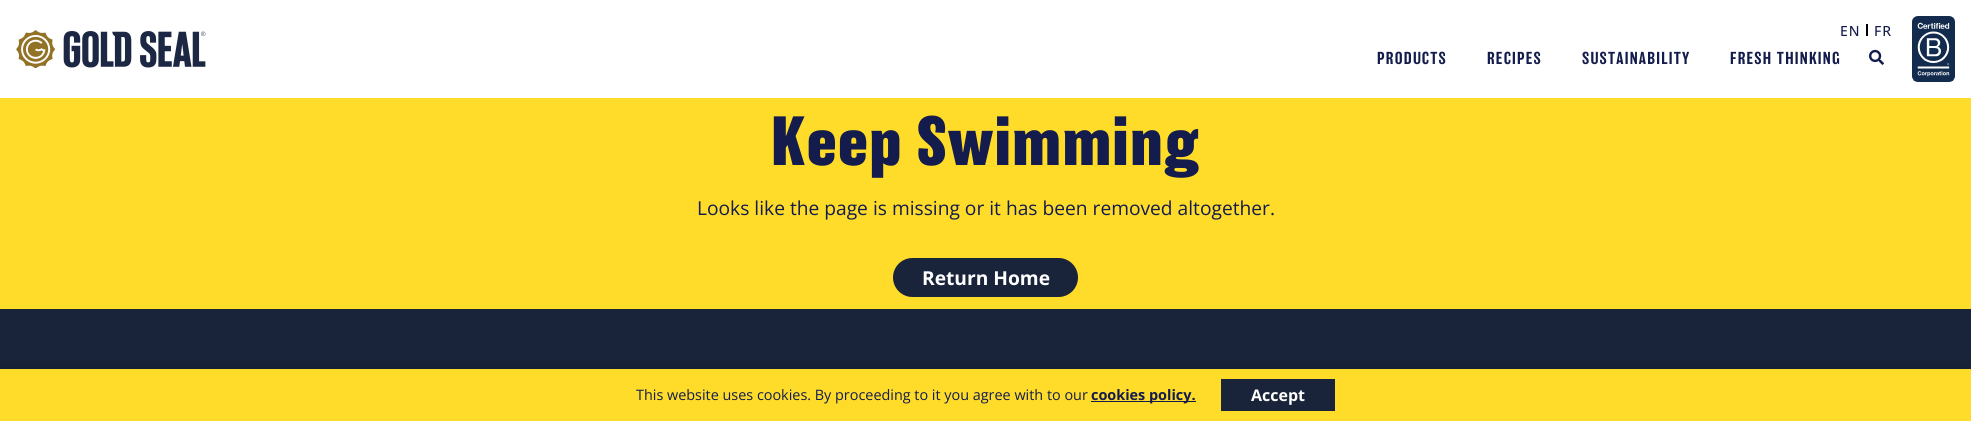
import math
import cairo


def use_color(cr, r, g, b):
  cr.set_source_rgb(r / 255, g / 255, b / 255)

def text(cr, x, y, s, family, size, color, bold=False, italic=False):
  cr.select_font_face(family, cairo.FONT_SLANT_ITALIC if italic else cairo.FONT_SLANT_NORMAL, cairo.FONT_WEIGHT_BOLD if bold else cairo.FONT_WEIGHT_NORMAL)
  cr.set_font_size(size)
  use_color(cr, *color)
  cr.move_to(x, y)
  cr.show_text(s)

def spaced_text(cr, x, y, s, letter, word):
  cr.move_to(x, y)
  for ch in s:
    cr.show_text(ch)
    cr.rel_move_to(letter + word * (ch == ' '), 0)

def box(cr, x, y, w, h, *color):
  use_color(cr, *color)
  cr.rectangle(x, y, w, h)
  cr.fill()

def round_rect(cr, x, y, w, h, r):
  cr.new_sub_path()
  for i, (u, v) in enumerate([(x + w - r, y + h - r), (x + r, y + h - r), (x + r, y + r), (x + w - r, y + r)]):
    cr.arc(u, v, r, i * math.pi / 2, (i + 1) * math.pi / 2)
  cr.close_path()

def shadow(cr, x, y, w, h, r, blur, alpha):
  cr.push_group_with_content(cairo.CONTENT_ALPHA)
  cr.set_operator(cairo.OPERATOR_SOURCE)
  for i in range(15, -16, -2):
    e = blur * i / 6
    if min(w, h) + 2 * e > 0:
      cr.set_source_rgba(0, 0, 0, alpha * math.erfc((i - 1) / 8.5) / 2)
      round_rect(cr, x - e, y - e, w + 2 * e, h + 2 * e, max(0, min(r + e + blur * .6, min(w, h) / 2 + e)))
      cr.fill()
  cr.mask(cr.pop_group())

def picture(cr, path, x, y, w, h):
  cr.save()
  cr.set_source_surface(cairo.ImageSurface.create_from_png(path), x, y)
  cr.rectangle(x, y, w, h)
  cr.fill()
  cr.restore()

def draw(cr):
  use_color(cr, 255, 255, 255)
  cr.paint()
  picture(cr, "img_01.png", 16, 30, 190, 38)
  box(cr, 1866, 24, 2, 12, 0, 0, 0)
  picture(cr, "img_02.png", 1869, 49, 15, 16)
  picture(cr, "img_03.png", 1912, 16, 43, 66)
  box(cr, 0, 98, 1971, 211, 255, 220, 42)
  use_color(cr, 25, 36, 58)
  round_rect(cr, 893, 258, 185, 39, 19.5)
  cr.fill()
  box(cr, 0, 309, 1971, 60, 25, 36, 58)
  use_color(cr, 0, 0, 0)
  shadow(cr, -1, 374, 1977, 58, 0, 11.5, 0.2)
  box(cr, 0, 369, 1971, 52, 255, 220, 42)
  box(cr, 1091, 401, 105, 1, 16, 28, 78)
  box(cr, 1221, 379, 114, 32, 25, 36, 58)
  cr.select_font_face("Open Sans Medium")
  cr.set_font_size(14)
  use_color(cr, 19, 28, 76)
  spaced_text(cr, 1840, 36, "EN", 1, 0)
  spaced_text(cr, 1874, 36, "FR", 1, 0)
  cr.select_font_face("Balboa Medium")
  cr.set_font_size(16)
  spaced_text(cr, 1377, 64, "PRODUCTS", 1.25, 0)
  spaced_text(cr, 1487, 64, "RECIPES", 1.25, 0)
  spaced_text(cr, 1582, 64, "SUSTAINABILITY", 1.25, 0)
  spaced_text(cr, 1730, 64, "FRESH THINKING", 1.25, 0)
  cr.select_font_face("Balboa ExtraBold")
  cr.set_font_size(64)
  spaced_text(cr, 771, 165, "Keep Swimming", 1.4, 0)
  text(cr, 697, 215, "Looks like the page is missing or it has been removed altogether.", "Open Sans", 19.2, (19, 28, 76))
  text(cr, 922, 285, "Return Home", "Open Sans", 19.2, (255, 255, 255), bold=True)
  text(cr, 636, 400, "This website uses cookies. By proceeding to it you agree with to our", "Open Sans", 14.4, (19, 28, 76))
  text(cr, 1091, 400, "cookies policy.", "Open Sans", 14.4, (19, 28, 76), bold=True)
  text(cr, 1251, 401, "Accept", "Open Sans", 16, (255, 255, 255), bold=True)


surface = cairo.ImageSurface(cairo.FORMAT_RGB24, 1971, 421)
cr = cairo.Context(surface)
options = cairo.FontOptions()
options.set_hint_metrics(cairo.HINT_METRICS_OFF)
options.set_hint_style(cairo.HINT_STYLE_NONE)
cr.set_font_options(options)
cr.set_miter_limit(4)
draw(cr)
surface.write_to_png("out.png")
